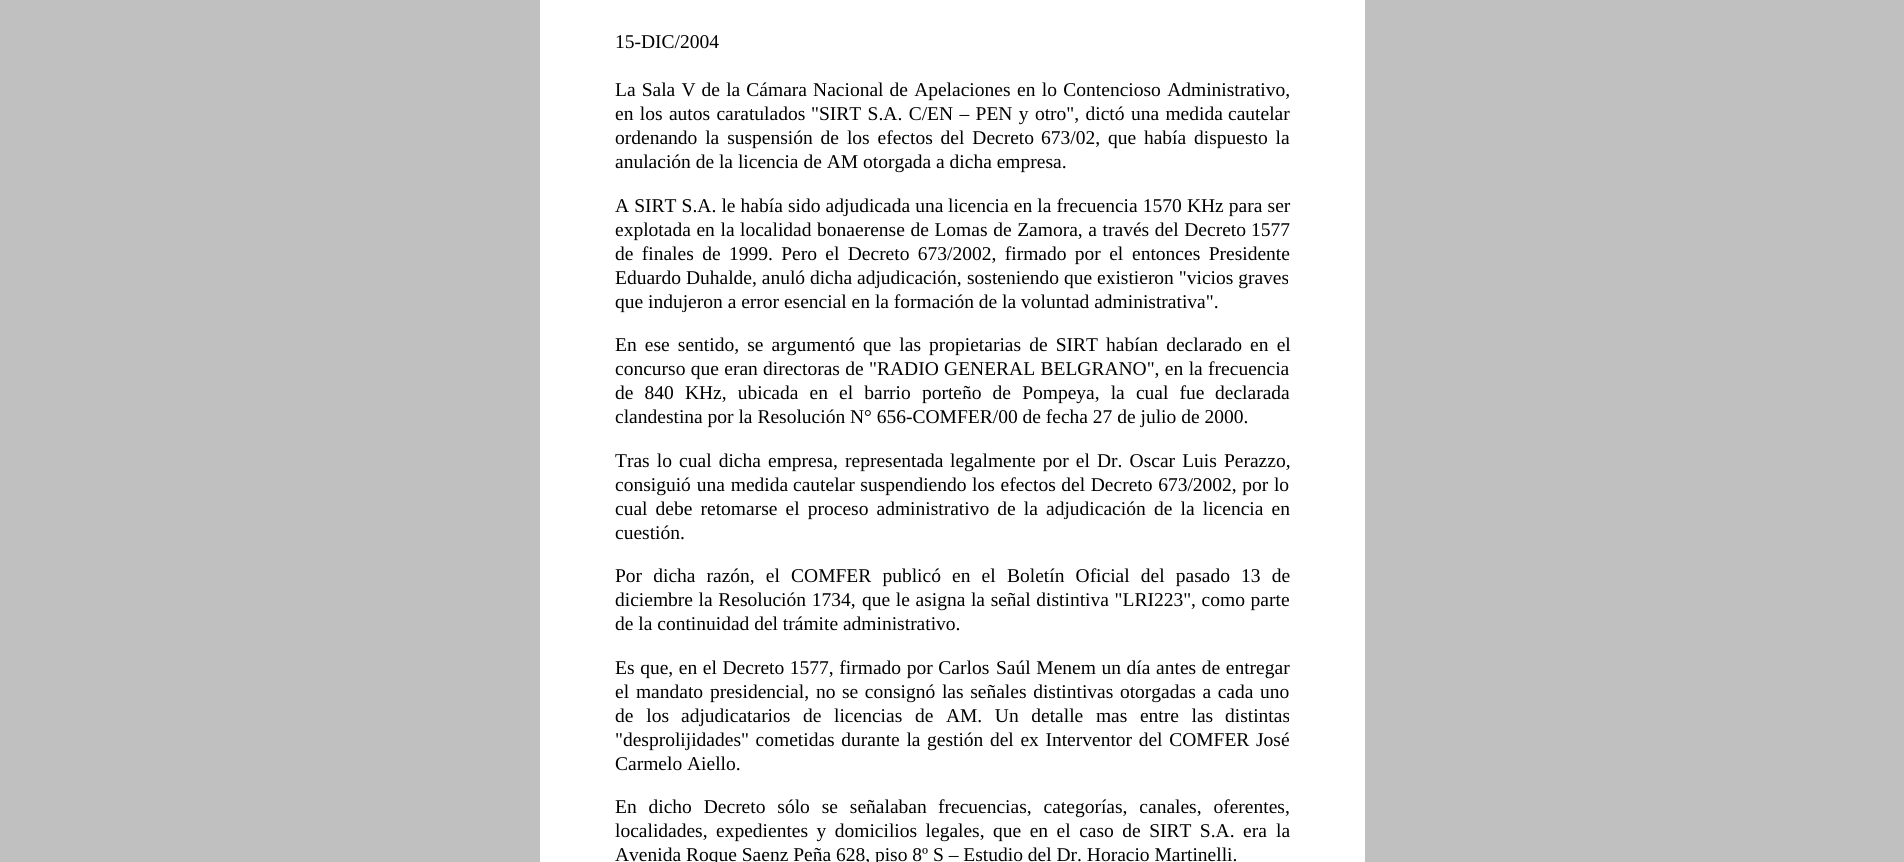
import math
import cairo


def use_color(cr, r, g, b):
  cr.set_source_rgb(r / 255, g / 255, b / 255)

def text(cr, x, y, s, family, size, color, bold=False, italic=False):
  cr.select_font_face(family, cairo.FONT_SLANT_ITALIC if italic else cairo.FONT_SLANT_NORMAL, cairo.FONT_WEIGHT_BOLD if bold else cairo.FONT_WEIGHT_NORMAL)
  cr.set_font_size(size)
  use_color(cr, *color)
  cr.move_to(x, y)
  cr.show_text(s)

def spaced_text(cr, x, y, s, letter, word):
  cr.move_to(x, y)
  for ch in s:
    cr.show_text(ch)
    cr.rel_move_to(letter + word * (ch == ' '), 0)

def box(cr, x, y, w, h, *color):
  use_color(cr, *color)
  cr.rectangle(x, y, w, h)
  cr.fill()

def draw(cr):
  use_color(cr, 192, 192, 192)
  cr.paint()
  box(cr, 540, 0, 825, 862, 255, 255, 255)
  text(cr, 615, 48, "15-DIC/2004", "Liberation Serif", 19.5, (0, 0, 0))
  spaced_text(cr, 615, 96, "La Sala V de la Cámara Nacional de Apelaciones", 0, 1.25)
  spaced_text(cr, 1017, 96, "en lo Contencioso Administrativo,", 0, 1.5)
  spaced_text(cr, 615, 120, "en los autos caratulados", 0, 1.5)
  spaced_text(cr, 811, 120, "\"SIRT S.A. C/EN – PEN y otro\", dictó una medida", 0, 1.5)
  text(cr, 1228, 120, "cautelar", "Liberation Serif", 19.5, (0, 0, 0))
  spaced_text(cr, 615, 144, "ordenando la suspensión de los efectos del Decreto", 0, 3)
  spaced_text(cr, 1041, 144, "673/02, que había dispuesto la", 0, 3)
  text(cr, 615, 168, "anulación de la licencia de AM otorgada a dicha empresa.", "Liberation Serif", 19.5, (0, 0, 0))
  spaced_text(cr, 615, 212, "A SIRT S.A. le había sido adjudicada una", 0, 0.25)
  spaced_text(cr, 948, 212, "licencia en la frecuencia 1570 KHz para ser", 0, 0.25)
  spaced_text(cr, 615, 236, "explotada en la", 0, 0.75)
  spaced_text(cr, 740, 236, "localidad bonaerense de Lomas de Zamora, a través del Decreto", 0, 0.75)
  text(cr, 1251, 236, "1577", "Liberation Serif", 19.5, (0, 0, 0))
  spaced_text(cr, 615, 260, "de finales de 1999. Pero el Decreto 673/2002, firmado por el", 0, 3.5)
  spaced_text(cr, 1132, 260, "entonces Presidente", 0, 3.6)
  text(cr, 615, 284, "Eduardo Duhalde, anuló dicha adjudicación,", "Liberation Serif", 19.5, (0, 0, 0))
  text(cr, 967, 284, "sosteniendo que existieron \"vicios graves", "Liberation Serif", 19.5, (0, 0, 0))
  text(cr, 615, 308, "que indujeron a error esencial en la formación de la voluntad administrativa\".", "Liberation Serif", 19.5, (0, 0, 0))
  spaced_text(cr, 615, 351, "En ese sentido, se argumentó que las", 0, 3.25)
  spaced_text(cr, 929, 351, "propietarias de SIRT habían declarado en el", 0, 3.25)
  spaced_text(cr, 615, 375, "concurso que eran", 0, 0.5)
  spaced_text(cr, 763, 375, "directoras de \"RADIO GENERAL BELGRANO\", en la frecuencia", 0, 0.5)
  spaced_text(cr, 615, 399, "de 840 KHz, ubicada en el barrio porteño de Pompeya, la cual fue", 0, 6.25)
  text(cr, 1215, 399, "declarada", "Liberation Serif", 19.5, (0, 0, 0))
  text(cr, 615, 423, "clandestina por la Resolución N° 656-COMFER/00 de fecha 27 de julio de 2000.", "Liberation Serif", 19.5, (0, 0, 0))
  spaced_text(cr, 615, 467, "Tras lo cual dicha empresa, representada", 0, 2.25)
  spaced_text(cr, 950, 467, "legalmente por el Dr. Oscar Luis Perazzo,", 0, 2.25)
  spaced_text(cr, 615, 491, "consiguió una medida", 0, 1)
  spaced_text(cr, 793, 491, "cautelar suspendiendo los efectos del Decreto 673/2002, por lo", 0, 0.75)
  spaced_text(cr, 615, 515, "cual debe retomarse el proceso administrativo de la adjudicación", 0, 3.25)
  spaced_text(cr, 1154, 515, "de la licencia en", 0, 3.25)
  text(cr, 615, 539, "cuestión.", "Liberation Serif", 19.5, (0, 0, 0))
  spaced_text(cr, 615, 582, "Por dicha razón, el COMFER publicó en el", 0, 6.25)
  spaced_text(cr, 1007, 582, "Boletín Oficial del pasado 13 de", 0, 6.25)
  spaced_text(cr, 615, 606, "diciembre la Resolución 1734,", 0, 0.75)
  spaced_text(cr, 862, 606, "que le asigna la señal distintiva \"LRI223\", como parte", 0, 0.75)
  text(cr, 615, 630, "de la continuidad del trámite administrativo.", "Liberation Serif", 19.5, (0, 0, 0))
  spaced_text(cr, 615, 674, "Es que, en el Decreto 1577, firmado por Carlos", 0, 0.75)
  spaced_text(cr, 996, 674, "Saúl Menem un día antes de entregar", 0, 0.75)
  spaced_text(cr, 615, 698, "el mandato presidencial, no", 0, 2)
  spaced_text(cr, 842, 698, "se consignó las señales distintivas otorgadas a cada uno", 0, 1.75)
  spaced_text(cr, 615, 722, "de los", 0, 8)
  spaced_text(cr, 681, 722, "adjudicatarios de licencias de AM. Un detalle mas entre las", 0, 7.75)
  text(cr, 1225, 722, "distintas", "Liberation Serif", 19.5, (0, 0, 0))
  spaced_text(cr, 615, 746, "\"desprolijidades\" cometidas durante la", 0, 1.75)
  spaced_text(cr, 927, 746, "gestión del ex Interventor del COMFER José", 0, 1.75)
  text(cr, 615, 770, "Carmelo Aiello.", "Liberation Serif", 19.5, (0, 0, 0))
  spaced_text(cr, 615, 813, "En dicho Decreto sólo se señalaban", 0, 7)
  spaced_text(cr, 938, 813, "frecuencias, categorías, canales, oferentes,", 0, 7)
  text(cr, 615, 837, "localidades,", "Liberation Serif", 19.5, (0, 0, 0))
  spaced_text(cr, 716, 837, "expedientes y domicilios legales, que en el caso de SIRT S.A. era", 0, 3.6)
  text(cr, 1276, 837, "la", "Liberation Serif", 19.5, (0, 0, 0))
  text(cr, 615, 861, "Avenida Roque Saenz Peña 628, piso 8º S – Estudio del Dr. Horacio Martinelli.", "Liberation Serif", 19.5, (0, 0, 0))


surface = cairo.ImageSurface(cairo.FORMAT_RGB24, 1904, 862)
cr = cairo.Context(surface)
options = cairo.FontOptions()
options.set_hint_metrics(cairo.HINT_METRICS_OFF)
options.set_hint_style(cairo.HINT_STYLE_NONE)
cr.set_font_options(options)
cr.set_miter_limit(4)
draw(cr)
surface.write_to_png("out.png")
